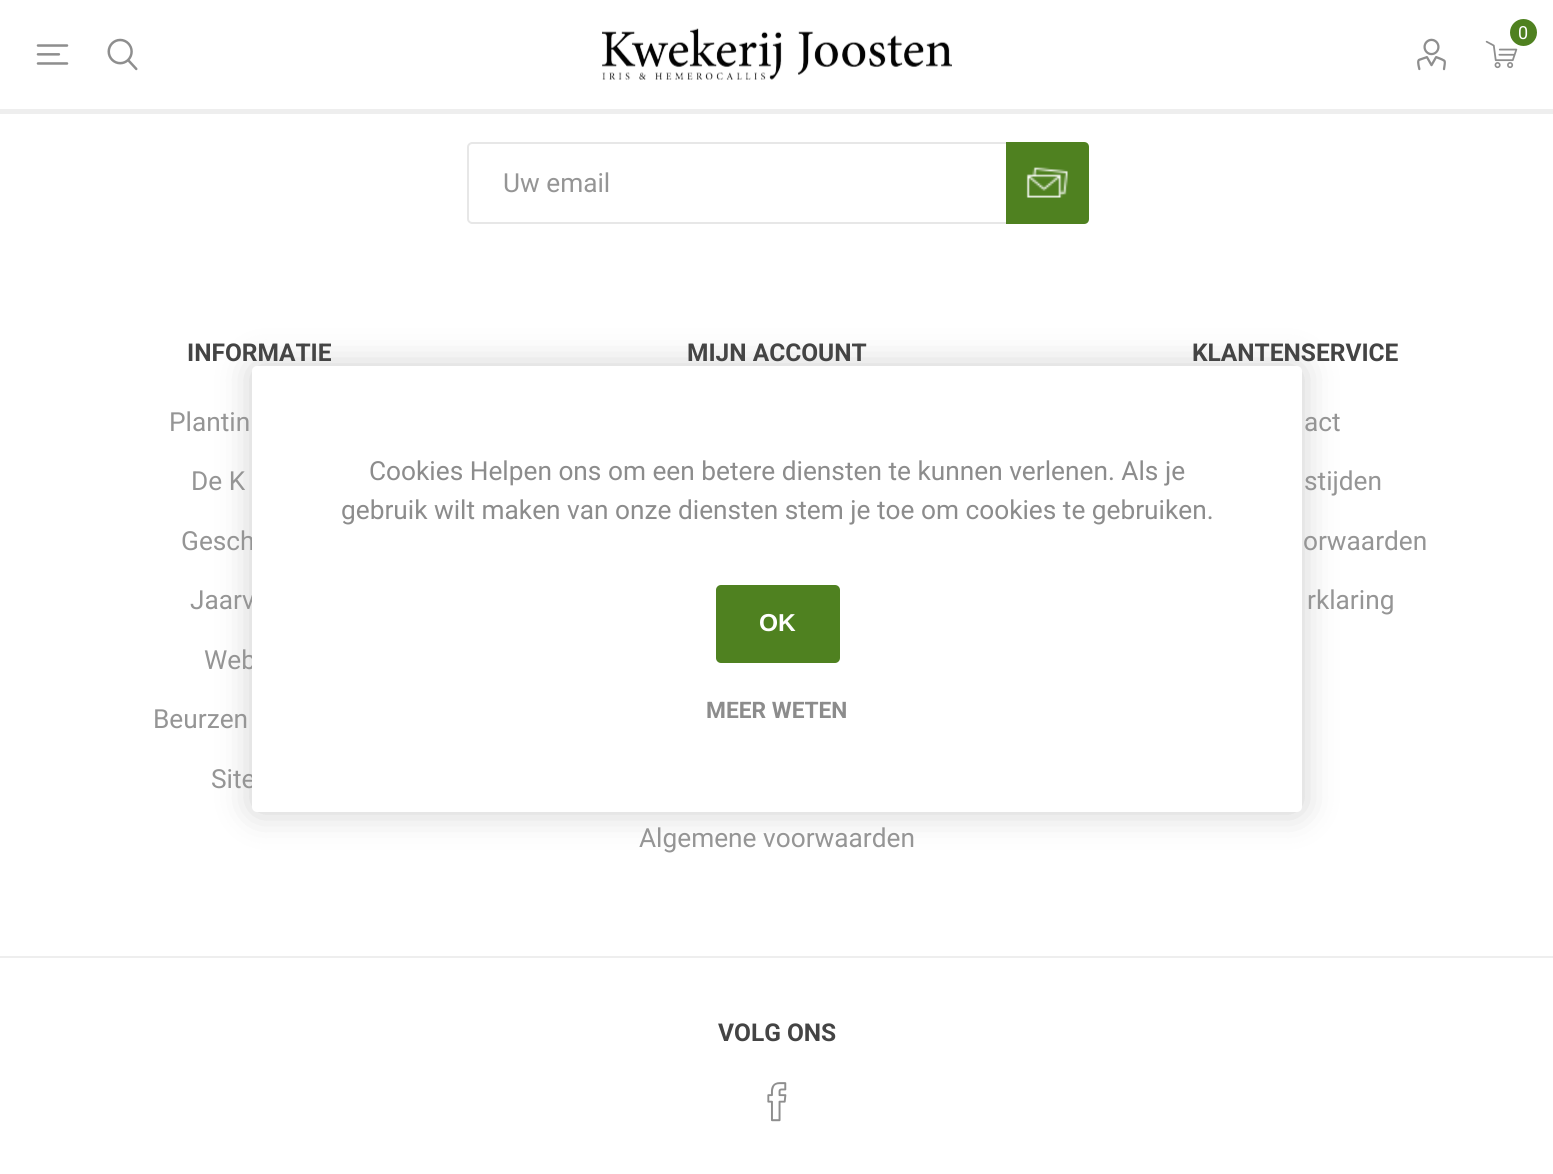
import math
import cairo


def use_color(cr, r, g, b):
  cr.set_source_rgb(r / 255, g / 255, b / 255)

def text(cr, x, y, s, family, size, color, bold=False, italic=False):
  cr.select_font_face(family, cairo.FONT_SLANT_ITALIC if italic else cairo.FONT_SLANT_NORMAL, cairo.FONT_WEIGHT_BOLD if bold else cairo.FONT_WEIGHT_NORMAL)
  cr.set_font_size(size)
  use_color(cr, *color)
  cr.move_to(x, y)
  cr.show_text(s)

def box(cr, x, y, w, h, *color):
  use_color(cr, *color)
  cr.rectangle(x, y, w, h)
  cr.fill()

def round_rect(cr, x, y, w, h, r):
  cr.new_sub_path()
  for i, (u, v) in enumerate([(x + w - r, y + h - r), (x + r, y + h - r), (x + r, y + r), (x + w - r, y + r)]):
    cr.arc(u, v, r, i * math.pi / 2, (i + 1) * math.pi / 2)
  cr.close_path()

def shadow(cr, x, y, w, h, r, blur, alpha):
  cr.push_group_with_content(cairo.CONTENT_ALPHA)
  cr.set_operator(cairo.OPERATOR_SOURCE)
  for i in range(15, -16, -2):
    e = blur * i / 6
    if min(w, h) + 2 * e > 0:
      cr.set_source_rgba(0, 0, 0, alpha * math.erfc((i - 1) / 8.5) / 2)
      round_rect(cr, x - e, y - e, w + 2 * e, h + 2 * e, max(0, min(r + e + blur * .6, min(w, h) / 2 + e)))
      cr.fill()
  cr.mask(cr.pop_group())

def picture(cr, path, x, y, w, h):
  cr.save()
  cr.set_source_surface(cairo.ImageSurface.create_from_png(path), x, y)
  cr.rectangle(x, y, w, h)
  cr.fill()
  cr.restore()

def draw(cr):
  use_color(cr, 255, 255, 255)
  cr.paint()
  box(cr, 0, 109, 1553, 5, 238, 238, 238)
  picture(cr, "img_01.png", 36, 44, 33, 21)
  picture(cr, "img_02.png", 107, 38, 31, 33)
  picture(cr, "img_03.png", 602, 28, 350, 52)
  picture(cr, "img_04.png", 1417, 38, 29, 33)
  picture(cr, "img_05.png", 1485, 40, 33, 29)
  use_color(cr, 79, 129, 32)
  cr.arc(1523.5, 32.5, 13.5, 0, 2 * math.pi)
  cr.fill()
  use_color(cr, 231, 231, 231)
  cr.set_fill_rule(cairo.FILL_RULE_EVEN_ODD)
  cr.new_path()
  cr.move_to(472, 142)
  cr.line_to(1006, 142)
  cr.line_to(1006, 224)
  cr.line_to(472, 224)
  cr.curve_to(470, 224, 467, 222, 467, 219)
  cr.line_to(467, 147)
  cr.curve_to(467, 144, 470, 142, 472, 142)
  cr.close_path()
  cr.move_to(472, 144)
  cr.line_to(1006, 144)
  cr.line_to(1006, 222)
  cr.line_to(472, 222)
  cr.curve_to(471, 222, 469, 221, 469, 219)
  cr.line_to(469, 147)
  cr.curve_to(469, 145, 471, 144, 472, 144)
  cr.close_path()
  cr.fill()
  use_color(cr, 79, 129, 32)
  cr.new_path()
  cr.move_to(1006, 142)
  cr.line_to(1084, 142)
  cr.curve_to(1087, 142, 1089, 144, 1089, 147)
  cr.line_to(1089, 219)
  cr.curve_to(1089, 222, 1087, 224, 1084, 224)
  cr.line_to(1006, 224)
  cr.close_path()
  cr.fill()
  picture(cr, "img_06.png", 1026, 167, 42, 31)
  box(cr, 0, 956, 1553, 2, 238, 238, 238)
  picture(cr, "img_07.png", 767, 1082, 20, 40)
  use_color(cr, 0, 0, 0)
  shadow(cr, 252, 366, 1050, 446, 5, 17.5, 0.2)
  text(cr, 1518, 39, "0", "Roboto", 18, (255, 255, 255))
  text(cr, 503, 192, "Uw email", "Roboto", 26.25, (149, 149, 149))
  text(cr, 187, 361, "INFORMATIE", "Roboto", 24.5, (68, 68, 68), bold=True)
  text(cr, 169, 431, "Plantin", "Roboto", 26.25, (149, 149, 149))
  text(cr, 191, 490, "De K", "Roboto", 26.25, (149, 149, 149))
  text(cr, 181, 550, "Gesch", "Roboto", 26.25, (149, 149, 149))
  text(cr, 190, 609, "Jaarv", "Roboto", 26.25, (149, 149, 149))
  text(cr, 204, 669, "Web", "Roboto", 26.25, (149, 149, 149))
  text(cr, 153, 728, "Beurzen", "Roboto", 26.25, (149, 149, 149))
  text(cr, 211, 788, "Site", "Roboto", 26.25, (149, 149, 149))
  text(cr, 687, 361, "MIJN ACCOUNT", "Roboto", 24.5, (68, 68, 68), bold=True)
  text(cr, 639, 847, "Algemene voorwaarden", "Roboto", 26.25, (149, 149, 149))
  text(cr, 1192, 361, "KLANTENSERVICE", "Roboto", 24.5, (68, 68, 68), bold=True)
  text(cr, 1304, 431, "act", "Roboto", 26.25, (149, 149, 149))
  text(cr, 1304, 490, "stijden", "Roboto", 26.25, (149, 149, 149))
  text(cr, 1303, 550, "orwaarden", "Roboto", 26.25, (149, 149, 149))
  text(cr, 1307, 609, "rklaring", "Roboto", 26.25, (149, 149, 149))
  text(cr, 718, 1041, "VOLG ONS", "Roboto", 24.5, (68, 68, 68), bold=True)
  use_color(cr, 255, 255, 255)
  round_rect(cr, 252, 366, 1050, 446, 5)
  cr.fill()
  text(cr, 369, 480, "Cookies Helpen ons om een betere diensten te kunnen verlenen. Als je", "Roboto", 26.25, (140, 140, 140))
  text(cr, 341, 519, "gebruik wilt maken van onze diensten stem je toe om cookies te gebruiken.", "Roboto", 26.25, (140, 140, 140))
  use_color(cr, 79, 129, 32)
  round_rect(cr, 716, 585, 124, 78, 5)
  cr.fill()
  text(cr, 759, 631, "OK", "Liberation Sans", 24.5, (255, 255, 255), bold=True)
  text(cr, 706, 718, "MEER WETEN", "Roboto", 22.75, (140, 140, 140), bold=True)


surface = cairo.ImageSurface(cairo.FORMAT_RGB24, 1553, 1174)
cr = cairo.Context(surface)
options = cairo.FontOptions()
options.set_hint_metrics(cairo.HINT_METRICS_OFF)
options.set_hint_style(cairo.HINT_STYLE_NONE)
cr.set_font_options(options)
cr.set_miter_limit(4)
draw(cr)
surface.write_to_png("out.png")
